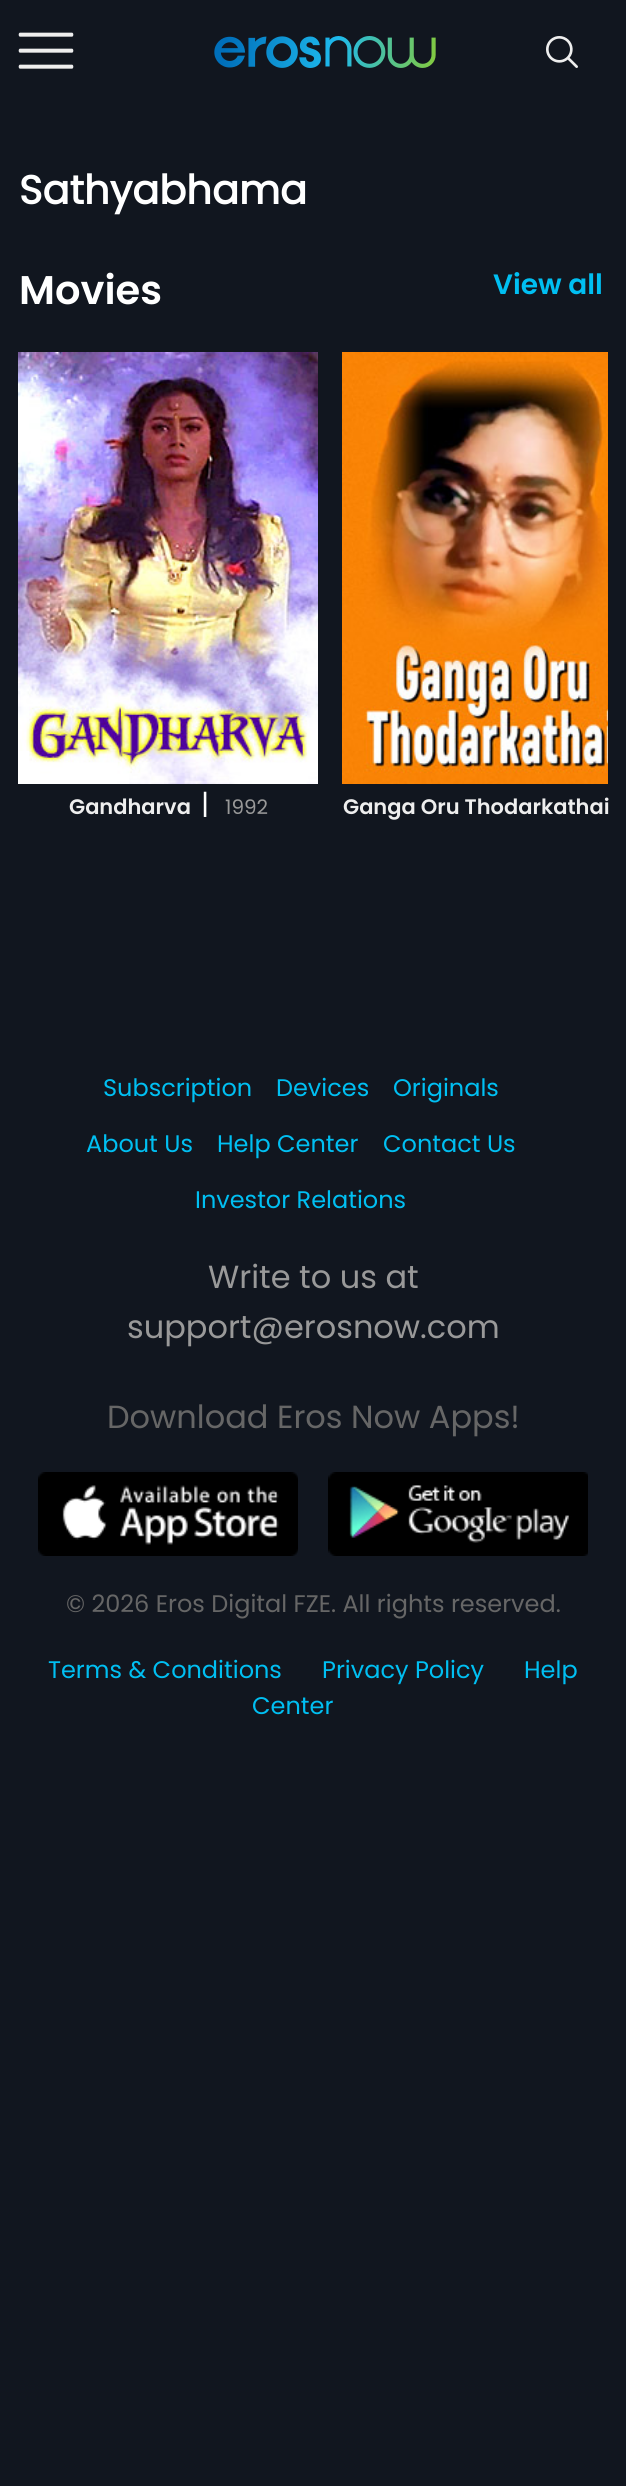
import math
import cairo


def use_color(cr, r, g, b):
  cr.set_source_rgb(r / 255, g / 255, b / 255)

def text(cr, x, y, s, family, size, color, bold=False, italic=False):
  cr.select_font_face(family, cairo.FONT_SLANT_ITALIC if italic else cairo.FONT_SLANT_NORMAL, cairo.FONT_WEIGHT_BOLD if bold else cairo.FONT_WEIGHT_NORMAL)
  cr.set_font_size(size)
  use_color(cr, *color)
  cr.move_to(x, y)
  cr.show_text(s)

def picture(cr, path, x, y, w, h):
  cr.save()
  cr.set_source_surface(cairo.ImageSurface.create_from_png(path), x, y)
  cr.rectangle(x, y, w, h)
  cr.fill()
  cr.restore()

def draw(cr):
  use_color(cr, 17, 22, 31)
  cr.paint()
  picture(cr, "img_01.png", 18, 32, 56, 37)
  picture(cr, "img_02.png", 214, 36, 222, 32)
  picture(cr, "img_03.png", 546, 36, 32, 32)
  picture(cr, "img_04.png", 18, 352, 300, 432)
  picture(cr, "img_05.png", 342, 352, 266, 432)
  picture(cr, "img_06.png", 38, 1472, 260, 84)
  picture(cr, "img_07.png", 328, 1472, 260, 84)
  text(cr, 19, 204, "Sathyabhama", "Poppins", 40, (255, 255, 255), bold=True)
  text(cr, 19, 304, "Movies", "Poppins SemiBold", 40, (255, 255, 255))
  text(cr, 493, 294, "View all", "Poppins SemiBold", 28, (0, 191, 242))
  text(cr, 69, 814, "Gandharva", "Poppins SemiBold", 21, (238, 238, 238))
  text(cr, 201, 814, "|", "Poppins", 28, (255, 255, 255))
  text(cr, 225, 814, "1992", "Poppins", 20, (153, 153, 153))
  text(cr, 343, 814, "Ganga Oru Thodarkathai", "Poppins SemiBold", 21, (238, 238, 238))
  text(cr, 103, 1096, "Subscription", "Poppins", 24, (0, 191, 242))
  text(cr, 276, 1096, "Devices", "Poppins", 24, (0, 191, 242))
  text(cr, 393, 1096, "Originals", "Poppins", 24, (0, 191, 242))
  text(cr, 86, 1152, "About Us", "Poppins", 24, (0, 191, 242))
  text(cr, 217, 1152, "Help Center", "Poppins", 24, (0, 191, 242))
  text(cr, 383, 1152, "Contact Us", "Poppins", 24, (0, 191, 242))
  text(cr, 195, 1208, "Investor Relations", "Poppins", 24, (0, 191, 242))
  text(cr, 208, 1288, "Write to us at", "Poppins", 32, (153, 153, 153))
  text(cr, 127, 1338, "support@erosnow.com", "Poppins", 32, (153, 153, 153))
  text(cr, 107, 1428, "Download Eros Now Apps!", "Poppins", 32, (102, 102, 102))
  text(cr, 66, 1612, "© 2026 Eros Digital FZE. All rights reserved.", "Poppins", 24, (102, 102, 102))
  text(cr, 48, 1678, "Terms & Conditions", "Poppins", 24, (0, 191, 242))
  text(cr, 322, 1678, "Privacy Policy", "Poppins", 24, (0, 191, 242))
  text(cr, 524, 1678, "Help", "Poppins", 24, (0, 191, 242))
  text(cr, 252, 1714, "Center", "Poppins", 24, (0, 191, 242))


surface = cairo.ImageSurface(cairo.FORMAT_RGB24, 626, 2486)
cr = cairo.Context(surface)
options = cairo.FontOptions()
options.set_hint_metrics(cairo.HINT_METRICS_OFF)
options.set_hint_style(cairo.HINT_STYLE_NONE)
cr.set_font_options(options)
cr.set_miter_limit(4)
draw(cr)
surface.write_to_png("out.png")
